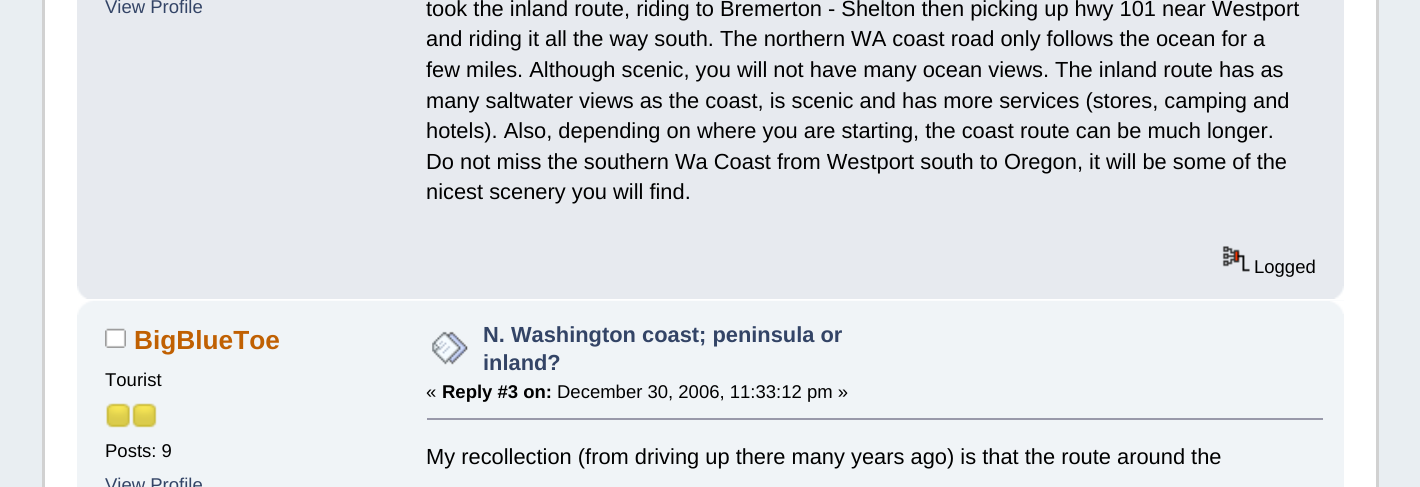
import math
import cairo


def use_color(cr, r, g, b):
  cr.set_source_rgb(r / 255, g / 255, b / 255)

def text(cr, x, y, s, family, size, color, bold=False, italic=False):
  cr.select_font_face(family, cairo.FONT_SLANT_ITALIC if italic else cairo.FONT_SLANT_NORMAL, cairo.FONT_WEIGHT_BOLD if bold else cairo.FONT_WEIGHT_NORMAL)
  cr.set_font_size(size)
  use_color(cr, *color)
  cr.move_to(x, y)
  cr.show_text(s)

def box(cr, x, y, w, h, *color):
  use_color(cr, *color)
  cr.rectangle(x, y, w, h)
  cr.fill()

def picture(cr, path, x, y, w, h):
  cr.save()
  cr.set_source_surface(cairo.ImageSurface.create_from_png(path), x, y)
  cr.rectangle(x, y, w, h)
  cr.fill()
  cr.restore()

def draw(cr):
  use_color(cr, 233, 238, 242)
  cr.paint()
  box(cr, 45, 0, 1331, 487, 255, 255, 255)
  box(cr, 42, 0, 3, 487, 209, 209, 209)
  box(cr, 1376, 0, 3, 487, 209, 209, 209)
  box(cr, 77, 0, 1267, 299, 231, 234, 239)
  picture(cr, "img_01.png", 1222, 246, 28, 26)
  picture(cr, "img_02.png", 77, 286, 10, 13)
  picture(cr, "img_03.png", 1334, 286, 10, 13)
  box(cr, 77, 315, 1267, 172, 240, 244, 247)
  picture(cr, "img_04.png", 77, 300, 1267, 15)
  picture(cr, "img_05.png", 1330, 301, 14, 13)
  picture(cr, "img_06.png", 105, 328, 21, 20)
  picture(cr, "img_07.png", 106, 403, 24, 25)
  picture(cr, "img_08.png", 132, 403, 25, 25)
  picture(cr, "img_09.png", 432, 331, 36, 34)
  box(cr, 427, 418, 896, 2, 153, 153, 170)
  text(cr, 105, 13, "View Profile", "Liberation Sans", 18.5, (51, 68, 102))
  text(cr, 426, 16, "took the inland route, riding to Bremerton - Shelton then picking up hwy 101 near Westport", "Liberation Sans", 21.85, (0, 0, 0))
  text(cr, 426, 46, "and riding it all the way south. The northern WA coast road only follows the ocean for a", "Liberation Sans", 21.85, (0, 0, 0))
  text(cr, 426, 77, "few miles. Although scenic, you will not have many ocean views. The inland route has as", "Liberation Sans", 21.85, (0, 0, 0))
  text(cr, 426, 108, "many saltwater views as the coast, is scenic and has more services (stores, camping and", "Liberation Sans", 21.85, (0, 0, 0))
  text(cr, 426, 138, "hotels). Also, depending on where you are starting, the coast route can be much longer.", "Liberation Sans", 21.85, (0, 0, 0))
  text(cr, 426, 169, "Do not miss the southern Wa Coast from Westport south to Oregon, it will be some of the", "Liberation Sans", 21.85, (0, 0, 0))
  text(cr, 426, 199, "nicest scenery you will find.", "Liberation Sans", 21.85, (0, 0, 0))
  text(cr, 1254, 273, "Logged", "Liberation Sans", 18.5, (0, 0, 0))
  text(cr, 134, 349, "BigBlueToe", "Liberation Sans", 26.25, (192, 96, 2), bold=True)
  text(cr, 105, 386, "Tourist", "Liberation Sans", 18.5, (0, 0, 0))
  text(cr, 105, 457, "Posts: 9", "Liberation Sans", 18.5, (0, 0, 0))
  text(cr, 105, 491, "View Profile", "Liberation Sans", 18.5, (51, 68, 102))
  text(cr, 483, 342, "N. Washington coast; peninsula or", "Liberation Sans", 21.85, (51, 68, 102), bold=True)
  text(cr, 483, 370, "inland?", "Liberation Sans", 21.85, (51, 68, 102), bold=True)
  text(cr, 426, 398, "«", "Liberation Sans", 18.5, (0, 0, 0))
  text(cr, 442, 398, "Reply #3 on:", "Liberation Sans", 18.5, (0, 0, 0), bold=True)
  text(cr, 557, 398, "December 30, 2006, 11:33:12 pm »", "Liberation Sans", 18.5, (0, 0, 0))
  text(cr, 426, 464, "My recollection (from driving up there many years ago) is that the route around the", "Liberation Sans", 21.85, (0, 0, 0))


surface = cairo.ImageSurface(cairo.FORMAT_RGB24, 1420, 487)
cr = cairo.Context(surface)
options = cairo.FontOptions()
options.set_hint_metrics(cairo.HINT_METRICS_OFF)
options.set_hint_style(cairo.HINT_STYLE_NONE)
cr.set_font_options(options)
cr.set_miter_limit(4)
draw(cr)
surface.write_to_png("out.png")
